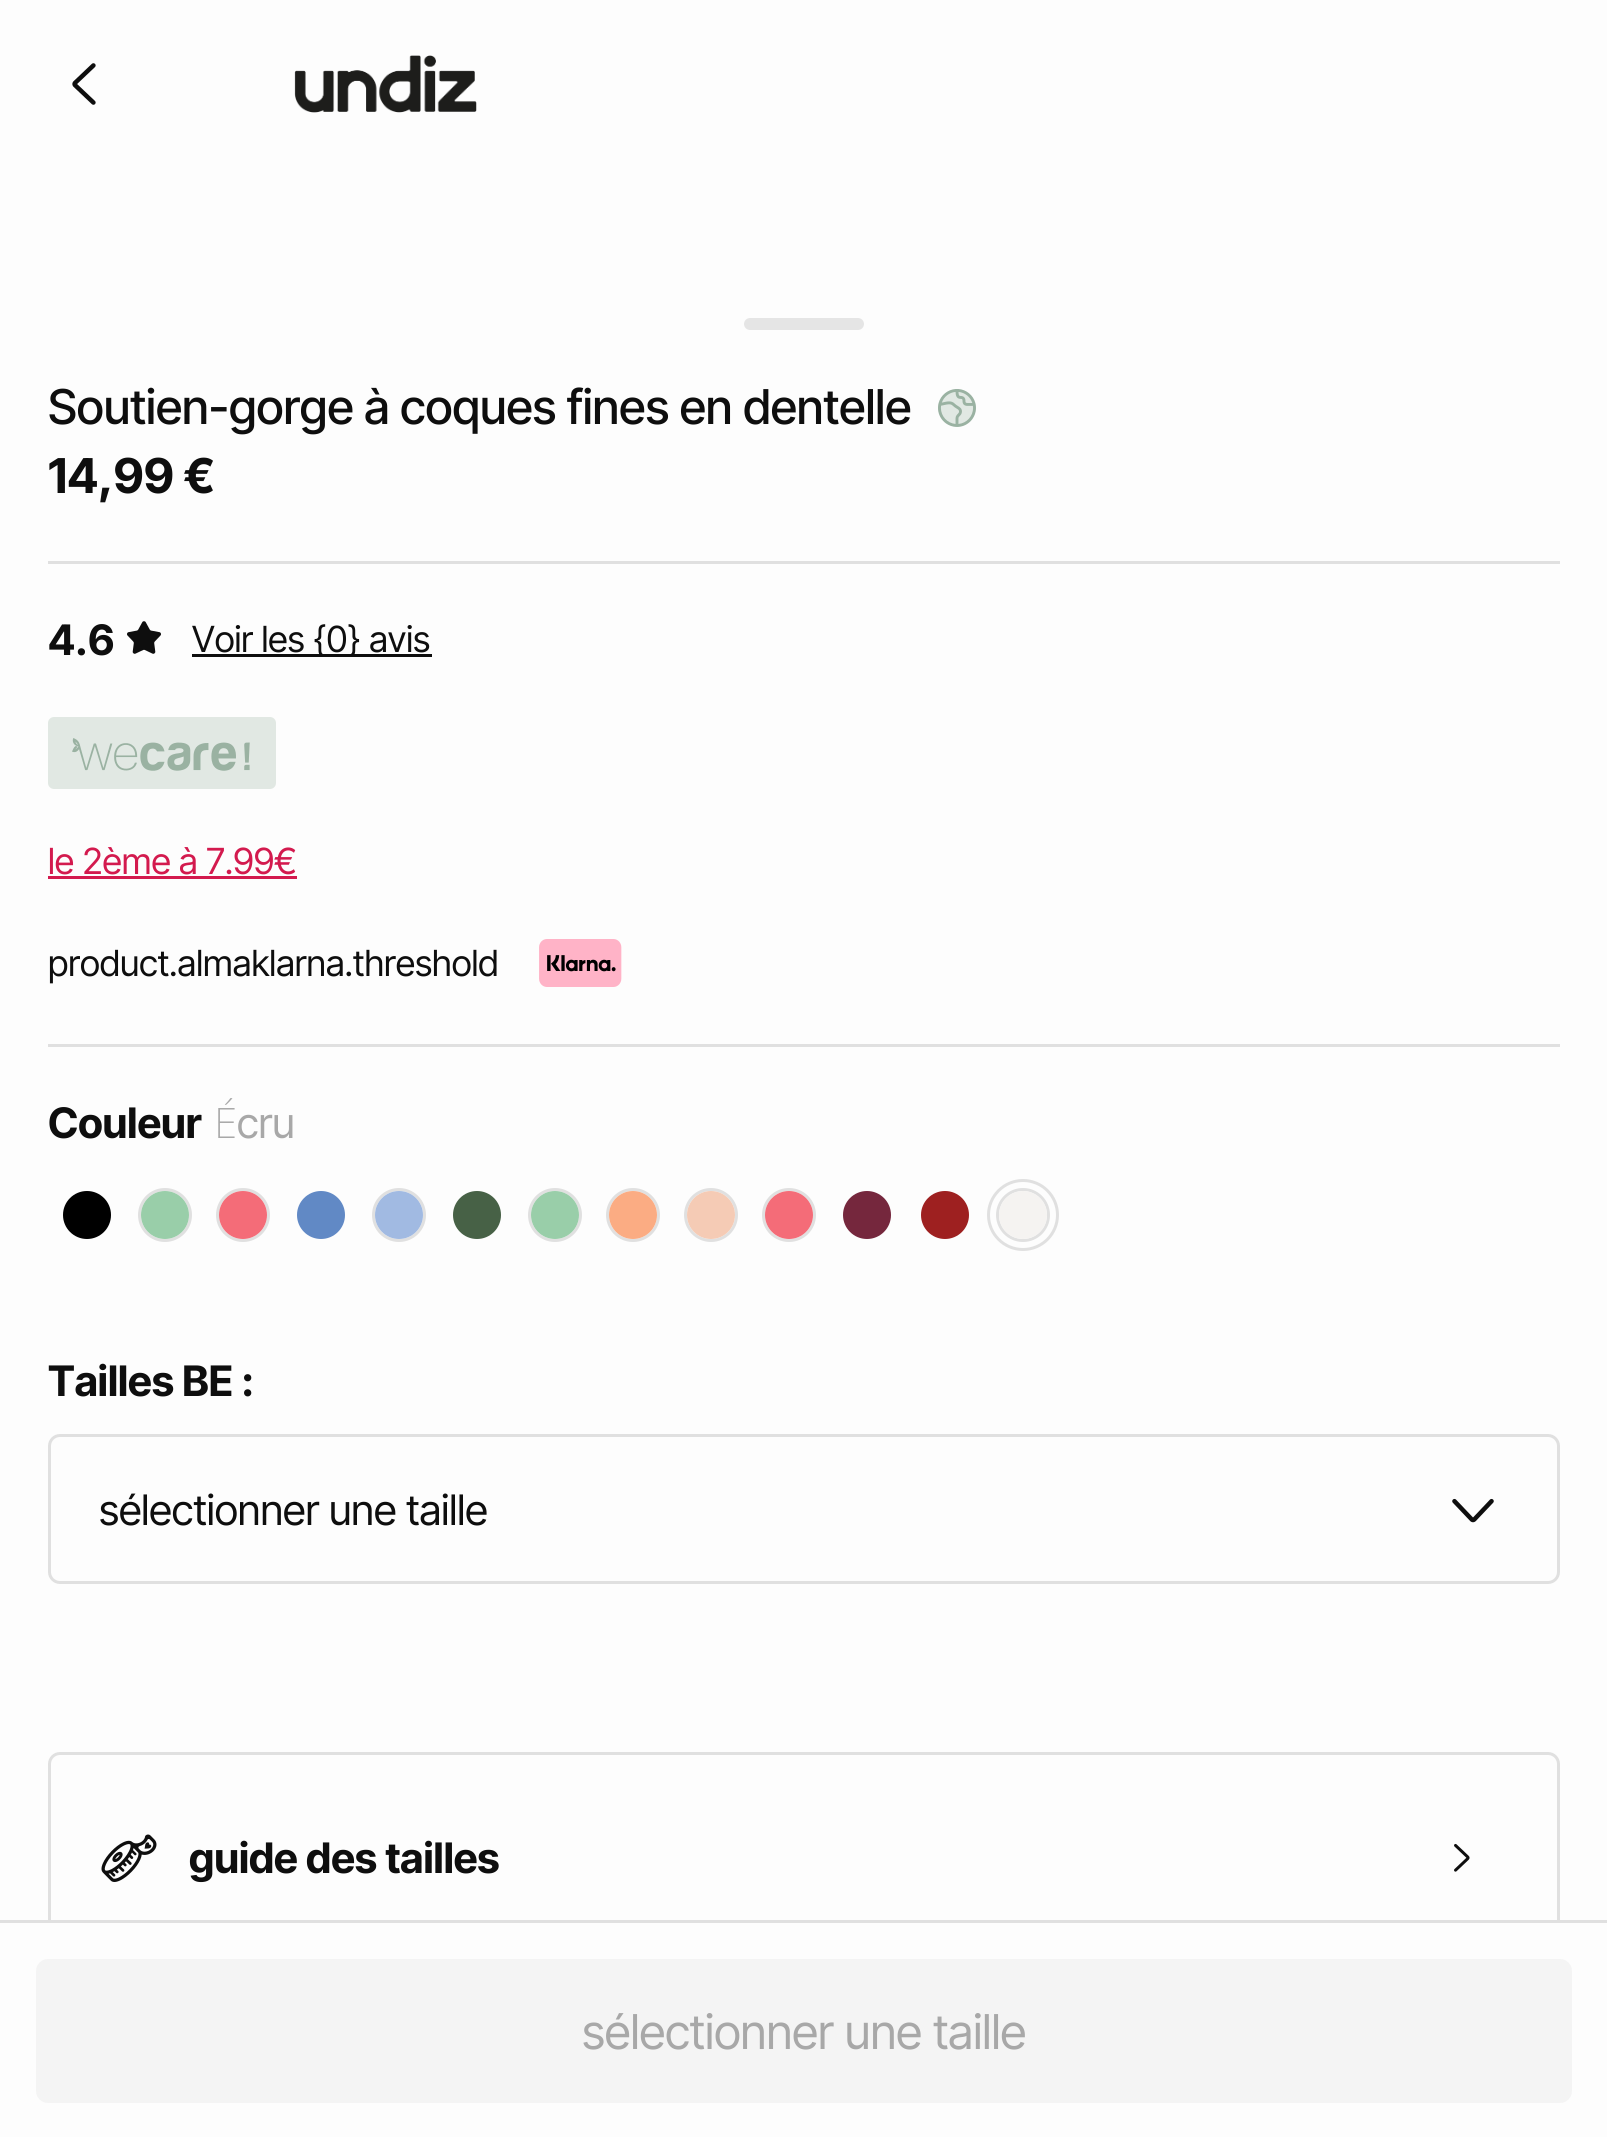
import math
import cairo


def use_color(cr, r, g, b):
  cr.set_source_rgb(r / 255, g / 255, b / 255)

def text(cr, x, y, s, family, size, color, bold=False, italic=False):
  cr.select_font_face(family, cairo.FONT_SLANT_ITALIC if italic else cairo.FONT_SLANT_NORMAL, cairo.FONT_WEIGHT_BOLD if bold else cairo.FONT_WEIGHT_NORMAL)
  cr.set_font_size(size)
  use_color(cr, *color)
  cr.move_to(x, y)
  cr.show_text(s)

def box(cr, x, y, w, h, *color):
  use_color(cr, *color)
  cr.rectangle(x, y, w, h)
  cr.fill()

def round_rect(cr, x, y, w, h, r):
  cr.new_sub_path()
  for i, (u, v) in enumerate([(x + w - r, y + h - r), (x + r, y + h - r), (x + r, y + r), (x + w - r, y + r)]):
    cr.arc(u, v, r, i * math.pi / 2, (i + 1) * math.pi / 2)
  cr.close_path()

def picture(cr, path, x, y, w, h):
  cr.save()
  cr.set_source_surface(cairo.ImageSurface.create_from_png(path), x, y)
  cr.rectangle(x, y, w, h)
  cr.fill()
  cr.restore()

def draw(cr):
  use_color(cr, 253, 253, 253)
  cr.paint()
  picture(cr, "img_01.png", 72, 63, 24, 42)
  picture(cr, "img_02.png", 294, 55, 183, 58)
  use_color(cr, 229, 229, 229)
  round_rect(cr, 744, 318, 120, 12, 6)
  cr.fill()
  picture(cr, "img_03.png", 938, 389, 38, 38)
  box(cr, 48, 561, 1512, 3, 224, 224, 224)
  picture(cr, "img_04.png", 127, 621, 34, 33)
  box(cr, 192, 654, 240, 3, 14, 14, 14)
  use_color(cr, 225, 232, 227)
  round_rect(cr, 48, 717, 228, 72, 6)
  cr.fill()
  picture(cr, "img_05.png", 72, 738, 178, 33)
  box(cr, 48, 876, 249, 3, 211, 26, 78)
  picture(cr, "img_06.png", 539, 939, 83, 48)
  box(cr, 48, 1044, 1512, 3, 224, 224, 224)
  use_color(cr, 0, 0, 0)
  cr.arc(87, 1215, 24, 0, 2 * math.pi)
  cr.fill()
  cr.arc(165, 1215, 25.5, 0, 2 * math.pi)
  use_color(cr, 224, 224, 224)
  cr.set_line_width(3)
  cr.stroke()
  use_color(cr, 153, 206, 169)
  cr.arc(165, 1215, 24, 0, 2 * math.pi)
  cr.fill()
  cr.arc(243, 1215, 25.5, 0, 2 * math.pi)
  use_color(cr, 224, 224, 224)
  cr.stroke()
  use_color(cr, 244, 108, 120)
  cr.arc(243, 1215, 24, 0, 2 * math.pi)
  cr.fill()
  use_color(cr, 97, 137, 197)
  cr.arc(321, 1215, 24, 0, 2 * math.pi)
  cr.fill()
  cr.arc(399, 1215, 25.5, 0, 2 * math.pi)
  use_color(cr, 224, 224, 224)
  cr.stroke()
  use_color(cr, 161, 186, 226)
  cr.arc(399, 1215, 24, 0, 2 * math.pi)
  cr.fill()
  use_color(cr, 71, 97, 70)
  cr.arc(477, 1215, 24, 0, 2 * math.pi)
  cr.fill()
  cr.arc(555, 1215, 25.5, 0, 2 * math.pi)
  use_color(cr, 224, 224, 224)
  cr.stroke()
  use_color(cr, 153, 206, 169)
  cr.arc(555, 1215, 24, 0, 2 * math.pi)
  cr.fill()
  cr.arc(633, 1215, 25.5, 0, 2 * math.pi)
  use_color(cr, 224, 224, 224)
  cr.stroke()
  use_color(cr, 251, 172, 131)
  cr.arc(633, 1215, 24, 0, 2 * math.pi)
  cr.fill()
  cr.arc(711, 1215, 25.5, 0, 2 * math.pi)
  use_color(cr, 224, 224, 224)
  cr.stroke()
  use_color(cr, 245, 203, 181)
  cr.arc(711, 1215, 24, 0, 2 * math.pi)
  cr.fill()
  cr.arc(789, 1215, 25.5, 0, 2 * math.pi)
  use_color(cr, 224, 224, 224)
  cr.stroke()
  use_color(cr, 244, 108, 120)
  cr.arc(789, 1215, 24, 0, 2 * math.pi)
  cr.fill()
  use_color(cr, 117, 39, 61)
  cr.arc(867, 1215, 24, 0, 2 * math.pi)
  cr.fill()
  use_color(cr, 158, 32, 32)
  cr.arc(945, 1215, 24, 0, 2 * math.pi)
  cr.fill()
  cr.arc(1023, 1215, 25.5, 0, 2 * math.pi)
  use_color(cr, 224, 224, 224)
  cr.stroke()
  cr.arc(1023, 1215, 34.5, 0, 2 * math.pi)
  cr.stroke()
  use_color(cr, 245, 243, 241)
  cr.arc(1023, 1215, 24, 0, 2 * math.pi)
  cr.fill()
  round_rect(cr, 49.5, 1435.5, 1509, 147, 10.5)
  use_color(cr, 224, 224, 224)
  cr.stroke()
  picture(cr, "img_07.png", 1452, 1498, 42, 25)
  round_rect(cr, 49.5, 1753.5, 1509, 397, 10.5)
  cr.stroke()
  box(cr, 48, 1923, 1512, 214, 253, 253, 253)
  box(cr, 0, 1920, 1607, 3, 224, 224, 224)
  use_color(cr, 244, 244, 244)
  round_rect(cr, 36, 1959, 1536, 144, 12)
  cr.fill()
  picture(cr, "img_08.png", 101, 1834, 56, 48)
  picture(cr, "img_09.png", 1454, 1843, 16, 29)
  text(cr, 48, 424, "Soutien-gorge à coques fines en dentelle", "Inter Tight Medium", 48, (14, 14, 14))
  text(cr, 48, 493, "14,99 €", "Inter Tight", 48, (14, 14, 14), bold=True)
  text(cr, 48, 655, "4.6", "Inter Tight", 42, (14, 14, 14), bold=True)
  text(cr, 192, 652, "Voir les {0} avis", "Inter Tight", 36, (14, 14, 14))
  text(cr, 48, 874, "le 2ème à 7.99€", "Inter Tight", 36, (211, 26, 78))
  text(cr, 48, 976, "product.almaklarna.threshold", "Inter Tight", 36, (14, 14, 14))
  text(cr, 48, 1138, "Couleur", "Inter Tight", 42, (14, 14, 14), bold=True)
  text(cr, 214, 1138, "É", "Noto Sans ExtraLight", 42, (168, 168, 168))
  text(cr, 237, 1138, "cru", "Inter Tight", 42, (168, 168, 168))
  text(cr, 48, 1396, "Tailles BE :", "Inter Tight", 42, (14, 14, 14), bold=True)
  text(cr, 99, 1525, "sélectionner une taille", "Inter Tight", 42, (14, 14, 14))
  text(cr, 582, 2049, "sélectionner une taille", "Inter Tight", 48, (168, 168, 168))
  text(cr, 189, 1873, "guide des tailles", "Inter Tight", 42, (14, 14, 14), bold=True)


surface = cairo.ImageSurface(cairo.FORMAT_RGB24, 1607, 2137)
cr = cairo.Context(surface)
options = cairo.FontOptions()
options.set_hint_metrics(cairo.HINT_METRICS_OFF)
options.set_hint_style(cairo.HINT_STYLE_NONE)
cr.set_font_options(options)
cr.set_miter_limit(4)
draw(cr)
surface.write_to_png("out.png")
